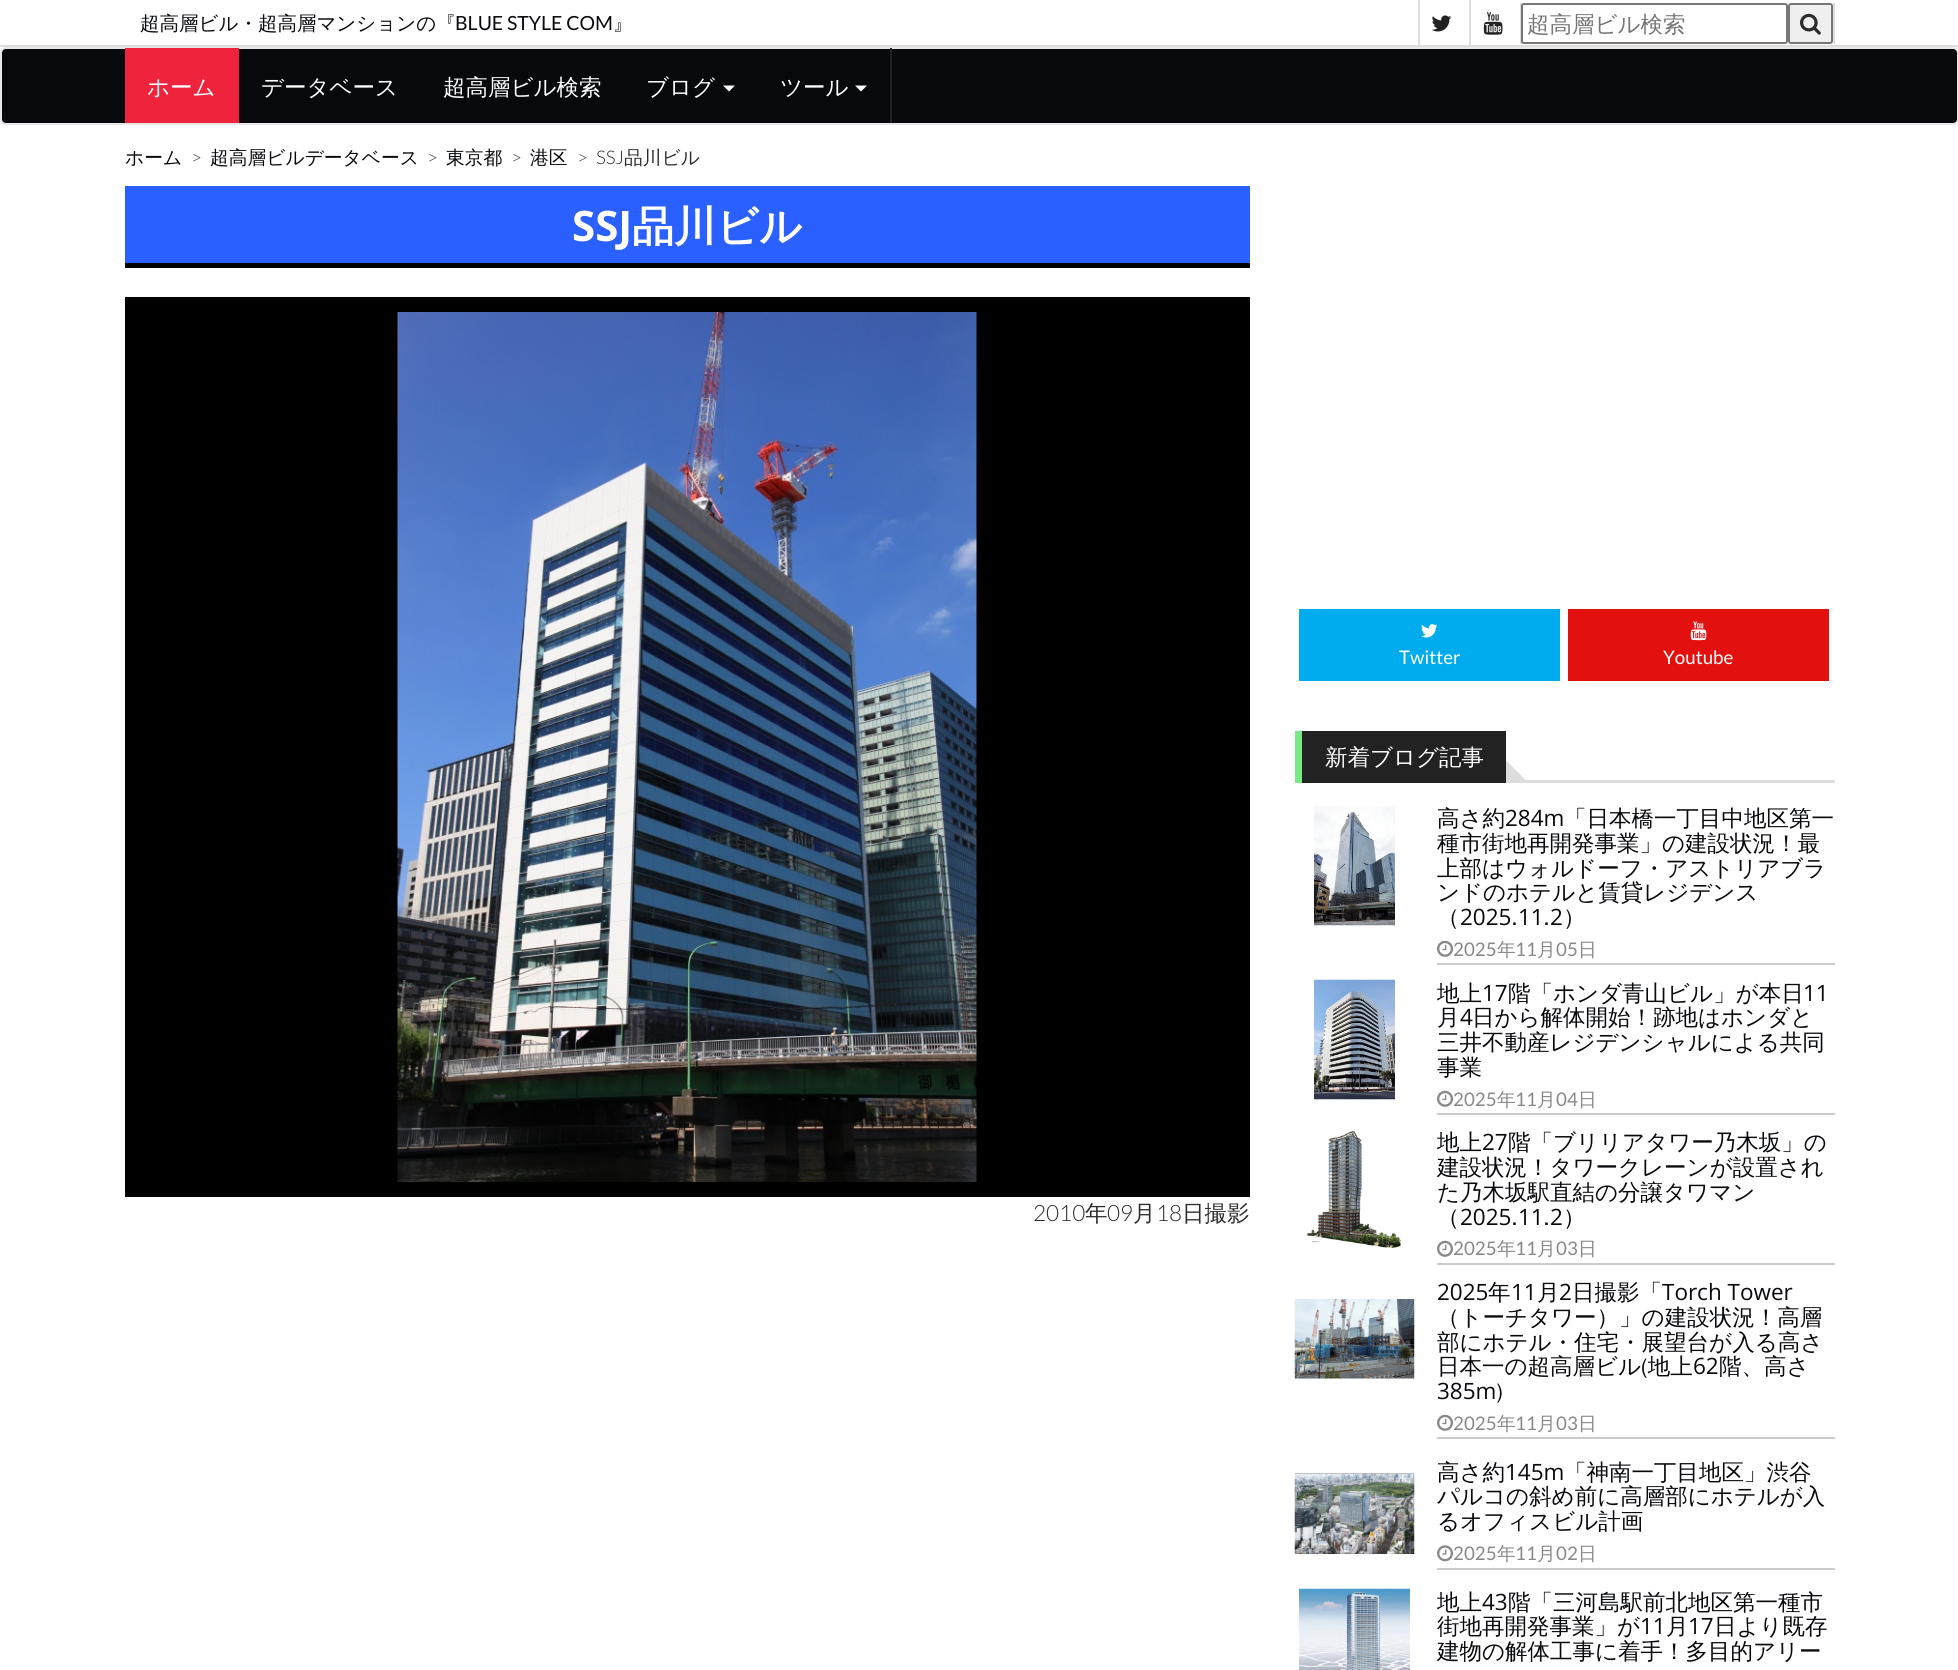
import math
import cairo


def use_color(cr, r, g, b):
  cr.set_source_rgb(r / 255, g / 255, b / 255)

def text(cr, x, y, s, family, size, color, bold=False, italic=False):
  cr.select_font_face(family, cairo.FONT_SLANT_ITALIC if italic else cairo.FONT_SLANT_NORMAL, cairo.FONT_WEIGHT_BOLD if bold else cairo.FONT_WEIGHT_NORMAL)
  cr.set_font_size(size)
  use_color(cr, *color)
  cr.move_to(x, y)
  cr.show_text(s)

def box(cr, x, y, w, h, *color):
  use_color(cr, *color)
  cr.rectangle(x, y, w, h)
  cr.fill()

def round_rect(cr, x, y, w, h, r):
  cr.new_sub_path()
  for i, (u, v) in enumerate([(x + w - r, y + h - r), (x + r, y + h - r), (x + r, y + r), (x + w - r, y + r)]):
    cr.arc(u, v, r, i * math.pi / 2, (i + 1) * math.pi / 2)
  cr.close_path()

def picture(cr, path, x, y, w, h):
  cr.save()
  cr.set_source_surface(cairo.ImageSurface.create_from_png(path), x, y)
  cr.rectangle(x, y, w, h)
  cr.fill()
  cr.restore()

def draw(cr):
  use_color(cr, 255, 255, 255)
  cr.paint()
  box(cr, 0, 45, 1958, 2, 221, 221, 221)
  box(cr, 1418, 0, 2, 45, 221, 221, 221)
  picture(cr, "img_01.png", 1431, 15, 21, 17)
  box(cr, 1469, 0, 2, 45, 221, 221, 221)
  picture(cr, "img_02.png", 1483, 12, 20, 23)
  box(cr, 1833, 3, 2, 41, 221, 221, 221)
  box(cr, 1520, 3, 2, 41, 221, 221, 221)
  use_color(cr, 255, 255, 255)
  round_rect(cr, 1522, 4, 265, 39, 2)
  cr.fill_preserve()
  use_color(cr, 118, 118, 118)
  cr.stroke()
  use_color(cr, 239, 239, 239)
  round_rect(cr, 1789, 4, 43, 39, 2)
  cr.fill_preserve()
  use_color(cr, 118, 118, 118)
  cr.stroke()
  picture(cr, "img_03.png", 1800, 13, 21, 22)
  use_color(cr, 7, 9, 12)
  round_rect(cr, 1, 48, 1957, 76, 5)
  cr.fill_preserve()
  use_color(cr, 231, 231, 231)
  cr.stroke()
  box(cr, 125, 48, 114, 75, 239, 35, 60)
  use_color(cr, 255, 255, 255)
  cr.new_path()
  cr.move_to(723, 85.5)
  cr.line_to(735, 85.5)
  cr.line_to(729, 91.5)
  cr.close_path()
  cr.fill()
  box(cr, 890, 48, 2, 75, 34, 34, 34)
  use_color(cr, 255, 255, 255)
  cr.new_path()
  cr.move_to(855, 85.5)
  cr.line_to(867, 85.5)
  cr.line_to(861, 91.5)
  cr.close_path()
  cr.fill()
  box(cr, 125, 186, 1125, 77, 42, 96, 255)
  box(cr, 125, 263, 1125, 5, 0, 0, 0)
  box(cr, 125, 297, 1125, 900, 0, 0, 0)
  picture(cr, "img_04.png", 397, 312, 580, 870)
  box(cr, 1299, 609, 261, 72, 0, 172, 237)
  picture(cr, "img_05.png", 1421, 624, 17, 14)
  box(cr, 1568, 609, 261, 72, 227, 16, 16)
  picture(cr, "img_06.png", 1690, 621, 17, 20)
  box(cr, 1302, 731, 204, 52, 34, 34, 34)
  box(cr, 1295, 731, 7, 52, 119, 234, 134)
  box(cr, 1525, 780, 310, 3, 221, 221, 221)
  cr.new_path()
  cr.move_to(1506, 783)
  cr.line_to(1506, 760.5)
  cr.line_to(1528.5, 783)
  cr.close_path()
  cr.fill()
  picture(cr, "img_07.png", 1314, 806, 81, 120)
  box(cr, 1437, 963, 398, 2, 204, 204, 204)
  picture(cr, "img_08.png", 1437, 940, 16, 17)
  picture(cr, "img_09.png", 1314, 979, 81, 121)
  box(cr, 1437, 1113, 398, 2, 204, 204, 204)
  picture(cr, "img_08.png", 1437, 1090, 16, 17)
  picture(cr, "img_10.png", 1307, 1131, 94, 118)
  box(cr, 1437, 1263, 398, 2, 204, 204, 204)
  picture(cr, "img_08.png", 1437, 1240, 16, 17)
  picture(cr, "img_11.png", 1294, 1299, 121, 80)
  box(cr, 1437, 1437, 398, 2, 204, 204, 204)
  picture(cr, "img_08.png", 1437, 1414, 16, 17)
  picture(cr, "img_12.png", 1294, 1473, 121, 81)
  box(cr, 1437, 1568, 398, 2, 204, 204, 204)
  picture(cr, "img_13.png", 1437, 1545, 17, 17)
  picture(cr, "img_14.png", 1299, 1588, 111, 82)
  text(cr, 140, 30, "超高層ビル・超高層マンションの『", "WenQuanYi Zen Hei Medium", 19.5, (7, 9, 12))
  text(cr, 455, 30, "BLUE STYLE COM", "Lato", 19.5, (7, 9, 12))
  text(cr, 613, 30, "』", "WenQuanYi Zen Hei Medium", 19.5, (7, 9, 12))
  text(cr, 1527, 32, "超高層ビル検索", "WenQuanYi Zen Hei Medium", 22.5, (117, 117, 117))
  text(cr, 147, 95, "ホーム", "WenQuanYi Zen Hei Medium", 22.5, (255, 255, 255))
  text(cr, 261, 95, "データベース", "WenQuanYi Zen Hei Medium", 22.5, (255, 255, 255))
  text(cr, 443, 95, "超高層ビル検索", "WenQuanYi Zen Hei Medium", 22.5, (255, 255, 255))
  text(cr, 646, 95, "ブログ", "WenQuanYi Zen Hei Medium", 22.5, (255, 255, 255))
  text(cr, 780, 95, "ツール", "WenQuanYi Zen Hei Medium", 22.5, (255, 255, 255))
  text(cr, 125, 164, "ホーム", "WenQuanYi Zen Hei Medium", 18.75, (7, 9, 12))
  text(cr, 191, 164, ">", "Lato Light", 18.75, (68, 68, 68))
  text(cr, 210, 164, "超高層ビルデータベース", "WenQuanYi Zen Hei Medium", 18.75, (7, 9, 12))
  text(cr, 427, 164, ">", "Lato Light", 18.75, (68, 68, 68))
  text(cr, 446, 164, "東京都", "WenQuanYi Zen Hei Medium", 18.75, (7, 9, 12))
  text(cr, 511, 164, ">", "Lato Light", 18.75, (68, 68, 68))
  text(cr, 530, 164, "港区", "WenQuanYi Zen Hei Medium", 18.75, (7, 9, 12))
  text(cr, 577, 164, ">", "Lato Light", 18.75, (68, 68, 68))
  text(cr, 596, 164, "SSJ", "Lato Light", 18.75, (44, 44, 44))
  text(cr, 624, 164, "品川ビル", "WenQuanYi Zen Hei Medium", 18.75, (44, 44, 44))
  text(cr, 572, 241, "SSJ", "Open Sans", 42, (255, 255, 255), bold=True)
  text(cr, 632, 241, "品川ビル", "WenQuanYi Zen Hei", 42, (255, 255, 255), bold=True)
  text(cr, 1033, 1221, "2010", "Lato Light", 22.5, (44, 44, 44))
  text(cr, 1085, 1221, "年", "WenQuanYi Zen Hei Medium", 22.5, (44, 44, 44))
  text(cr, 1107, 1221, "09", "Lato Light", 22.5, (44, 44, 44))
  text(cr, 1133, 1221, "月", "WenQuanYi Zen Hei Medium", 22.5, (44, 44, 44))
  text(cr, 1156, 1221, "18", "Lato Light", 22.5, (44, 44, 44))
  text(cr, 1182, 1221, "日撮影", "WenQuanYi Zen Hei Medium", 22.5, (44, 44, 44))
  text(cr, 1399, 664, "Twitter", "Lato", 18.75, (255, 255, 255))
  text(cr, 1663, 664, "Youtube", "Lato", 18.75, (255, 255, 255))
  text(cr, 1325, 765, "新着ブログ記事", "WenQuanYi Zen Hei Medium", 22.5, (255, 255, 255))
  text(cr, 1437, 826, "高さ約", "WenQuanYi Zen Hei Medium", 22.5, (7, 9, 12))
  text(cr, 1505, 826, "284m", "Open Sans", 22.5, (7, 9, 12))
  text(cr, 1564, 826, "「日本橋一丁目中地区第一", "WenQuanYi Zen Hei Medium", 22.5, (7, 9, 12))
  text(cr, 1437, 851, "種市街地再開発事業」の建設状況！最", "WenQuanYi Zen Hei Medium", 22.5, (7, 9, 12))
  text(cr, 1437, 876, "上部はウォルドーフ・アストリアブラ", "WenQuanYi Zen Hei Medium", 22.5, (7, 9, 12))
  text(cr, 1437, 900, "ンドのホテルと賃貸レジデンス", "WenQuanYi Zen Hei Medium", 22.5, (7, 9, 12))
  text(cr, 1437, 925, "（", "WenQuanYi Zen Hei Medium", 22.5, (7, 9, 12))
  text(cr, 1460, 925, "2025", "Open Sans", 22.5, (7, 9, 12))
  text(cr, 1511, 925, ".", "WenQuanYi Zen Hei Medium", 22.5, (7, 9, 12))
  text(cr, 1518, 925, "11", "Open Sans", 22.5, (7, 9, 12))
  text(cr, 1543, 925, ".", "WenQuanYi Zen Hei Medium", 22.5, (7, 9, 12))
  text(cr, 1550, 925, "2", "Open Sans", 22.5, (7, 9, 12))
  text(cr, 1563, 925, "）", "WenQuanYi Zen Hei Medium", 22.5, (7, 9, 12))
  text(cr, 1453, 956, "2025", "Lato", 18.75, (136, 136, 136))
  text(cr, 1497, 956, "年", "WenQuanYi Zen Hei Medium", 18.75, (136, 136, 136))
  text(cr, 1515, 956, "11", "Lato", 18.75, (136, 136, 136))
  text(cr, 1537, 956, "月", "WenQuanYi Zen Hei Medium", 18.75, (136, 136, 136))
  text(cr, 1556, 956, "05", "Lato", 18.75, (136, 136, 136))
  text(cr, 1578, 956, "日", "WenQuanYi Zen Hei Medium", 18.75, (136, 136, 136))
  text(cr, 1437, 1001, "地上", "WenQuanYi Zen Hei Medium", 22.5, (7, 9, 12))
  text(cr, 1482, 1001, "17", "Open Sans", 22.5, (7, 9, 12))
  text(cr, 1508, 1001, "階「ホンダ青山ビル」が本日", "WenQuanYi Zen Hei Medium", 22.5, (7, 9, 12))
  text(cr, 1803, 1001, "11", "Open Sans", 22.5, (7, 9, 12))
  text(cr, 1437, 1025, "月", "WenQuanYi Zen Hei Medium", 22.5, (7, 9, 12))
  text(cr, 1460, 1025, "4", "Open Sans", 22.5, (7, 9, 12))
  text(cr, 1472, 1025, "日から解体開始！跡地はホンダと", "WenQuanYi Zen Hei Medium", 22.5, (7, 9, 12))
  text(cr, 1437, 1050, "三井不動産レジデンシャルによる共同", "WenQuanYi Zen Hei Medium", 22.5, (7, 9, 12))
  text(cr, 1437, 1075, "事業", "WenQuanYi Zen Hei Medium", 22.5, (7, 9, 12))
  text(cr, 1453, 1106, "2025", "Lato", 18.75, (136, 136, 136))
  text(cr, 1497, 1106, "年", "WenQuanYi Zen Hei Medium", 18.75, (136, 136, 136))
  text(cr, 1515, 1106, "11", "Lato", 18.75, (136, 136, 136))
  text(cr, 1537, 1106, "月", "WenQuanYi Zen Hei Medium", 18.75, (136, 136, 136))
  text(cr, 1556, 1106, "04", "Lato", 18.75, (136, 136, 136))
  text(cr, 1578, 1106, "日", "WenQuanYi Zen Hei Medium", 18.75, (136, 136, 136))
  text(cr, 1437, 1150, "地上", "WenQuanYi Zen Hei Medium", 22.5, (7, 9, 12))
  text(cr, 1482, 1150, "27", "Open Sans", 22.5, (7, 9, 12))
  text(cr, 1508, 1150, "階「ブリリアタワー乃木坂」の", "WenQuanYi Zen Hei Medium", 22.5, (7, 9, 12))
  text(cr, 1437, 1175, "建設状況！タワークレーンが設置され", "WenQuanYi Zen Hei Medium", 22.5, (7, 9, 12))
  text(cr, 1437, 1200, "た乃木坂駅直結の分譲タワマン", "WenQuanYi Zen Hei Medium", 22.5, (7, 9, 12))
  text(cr, 1437, 1225, "（", "WenQuanYi Zen Hei Medium", 22.5, (7, 9, 12))
  text(cr, 1460, 1225, "2025", "Open Sans", 22.5, (7, 9, 12))
  text(cr, 1511, 1225, ".", "WenQuanYi Zen Hei Medium", 22.5, (7, 9, 12))
  text(cr, 1518, 1225, "11", "Open Sans", 22.5, (7, 9, 12))
  text(cr, 1543, 1225, ".", "WenQuanYi Zen Hei Medium", 22.5, (7, 9, 12))
  text(cr, 1550, 1225, "2", "Open Sans", 22.5, (7, 9, 12))
  text(cr, 1563, 1225, "）", "WenQuanYi Zen Hei Medium", 22.5, (7, 9, 12))
  text(cr, 1453, 1255, "2025", "Lato", 18.75, (136, 136, 136))
  text(cr, 1497, 1255, "年", "WenQuanYi Zen Hei Medium", 18.75, (136, 136, 136))
  text(cr, 1515, 1255, "11", "Lato", 18.75, (136, 136, 136))
  text(cr, 1537, 1255, "月", "WenQuanYi Zen Hei Medium", 18.75, (136, 136, 136))
  text(cr, 1556, 1255, "03", "Lato", 18.75, (136, 136, 136))
  text(cr, 1578, 1255, "日", "WenQuanYi Zen Hei Medium", 18.75, (136, 136, 136))
  text(cr, 1437, 1300, "2025", "Open Sans", 22.5, (7, 9, 12))
  text(cr, 1488, 1300, "年", "WenQuanYi Zen Hei Medium", 22.5, (7, 9, 12))
  text(cr, 1511, 1300, "11", "Open Sans", 22.5, (7, 9, 12))
  text(cr, 1537, 1300, "月", "WenQuanYi Zen Hei Medium", 22.5, (7, 9, 12))
  text(cr, 1559, 1300, "2", "Open Sans", 22.5, (7, 9, 12))
  text(cr, 1572, 1300, "日撮影「", "WenQuanYi Zen Hei Medium", 22.5, (7, 9, 12))
  text(cr, 1662, 1300, "Torch Tower", "Open Sans", 22.5, (7, 9, 12))
  text(cr, 1437, 1325, "（トーチタワー）」の建設状況！高層", "WenQuanYi Zen Hei Medium", 22.5, (7, 9, 12))
  text(cr, 1437, 1350, "部にホテル・住宅・展望台が入る高さ", "WenQuanYi Zen Hei Medium", 22.5, (7, 9, 12))
  text(cr, 1437, 1374, "日本一の超高層ビル(地上", "WenQuanYi Zen Hei Medium", 22.5, (7, 9, 12))
  text(cr, 1693, 1374, "62", "Open Sans", 22.5, (7, 9, 12))
  text(cr, 1719, 1374, "階、高さ", "WenQuanYi Zen Hei Medium", 22.5, (7, 9, 12))
  text(cr, 1437, 1399, "385m", "Open Sans", 22.5, (7, 9, 12))
  text(cr, 1496, 1399, ")", "WenQuanYi Zen Hei Medium", 22.5, (7, 9, 12))
  text(cr, 1453, 1430, "2025", "Lato", 18.75, (136, 136, 136))
  text(cr, 1497, 1430, "年", "WenQuanYi Zen Hei Medium", 18.75, (136, 136, 136))
  text(cr, 1515, 1430, "11", "Lato", 18.75, (136, 136, 136))
  text(cr, 1537, 1430, "月", "WenQuanYi Zen Hei Medium", 18.75, (136, 136, 136))
  text(cr, 1556, 1430, "03", "Lato", 18.75, (136, 136, 136))
  text(cr, 1578, 1430, "日", "WenQuanYi Zen Hei Medium", 18.75, (136, 136, 136))
  text(cr, 1437, 1480, "高さ約", "WenQuanYi Zen Hei Medium", 22.5, (7, 9, 12))
  text(cr, 1505, 1480, "145m", "Open Sans", 22.5, (7, 9, 12))
  text(cr, 1564, 1480, "「神南一丁目地区」渋谷", "WenQuanYi Zen Hei Medium", 22.5, (7, 9, 12))
  text(cr, 1437, 1504, "パルコの斜め前に高層部にホテルが入", "WenQuanYi Zen Hei Medium", 22.5, (7, 9, 12))
  text(cr, 1437, 1529, "るオフィスビル計画", "WenQuanYi Zen Hei Medium", 22.5, (7, 9, 12))
  text(cr, 1453, 1560, "2025", "Lato", 18.75, (136, 136, 136))
  text(cr, 1497, 1560, "年", "WenQuanYi Zen Hei Medium", 18.75, (136, 136, 136))
  text(cr, 1515, 1560, "11", "Lato", 18.75, (136, 136, 136))
  text(cr, 1537, 1560, "月", "WenQuanYi Zen Hei Medium", 18.75, (136, 136, 136))
  text(cr, 1556, 1560, "02", "Lato", 18.75, (136, 136, 136))
  text(cr, 1578, 1560, "日", "WenQuanYi Zen Hei Medium", 18.75, (136, 136, 136))
  text(cr, 1437, 1610, "地上", "WenQuanYi Zen Hei Medium", 22.5, (7, 9, 12))
  text(cr, 1482, 1610, "43", "Open Sans", 22.5, (7, 9, 12))
  text(cr, 1508, 1610, "階「三河島駅前北地区第一種市", "WenQuanYi Zen Hei Medium", 22.5, (7, 9, 12))
  text(cr, 1437, 1634, "街地再開発事業」が", "WenQuanYi Zen Hei Medium", 22.5, (7, 9, 12))
  text(cr, 1640, 1634, "11", "Open Sans", 22.5, (7, 9, 12))
  text(cr, 1666, 1634, "月", "WenQuanYi Zen Hei Medium", 22.5, (7, 9, 12))
  text(cr, 1688, 1634, "17", "Open Sans", 22.5, (7, 9, 12))
  text(cr, 1714, 1634, "日より既存", "WenQuanYi Zen Hei Medium", 22.5, (7, 9, 12))
  text(cr, 1437, 1659, "建物の解体工事に着手！多目的アリー", "WenQuanYi Zen Hei Medium", 22.5, (7, 9, 12))


surface = cairo.ImageSurface(cairo.FORMAT_RGB24, 1958, 1670)
cr = cairo.Context(surface)
options = cairo.FontOptions()
options.set_hint_metrics(cairo.HINT_METRICS_OFF)
options.set_hint_style(cairo.HINT_STYLE_NONE)
cr.set_font_options(options)
cr.set_miter_limit(4)
draw(cr)
surface.write_to_png("out.png")
